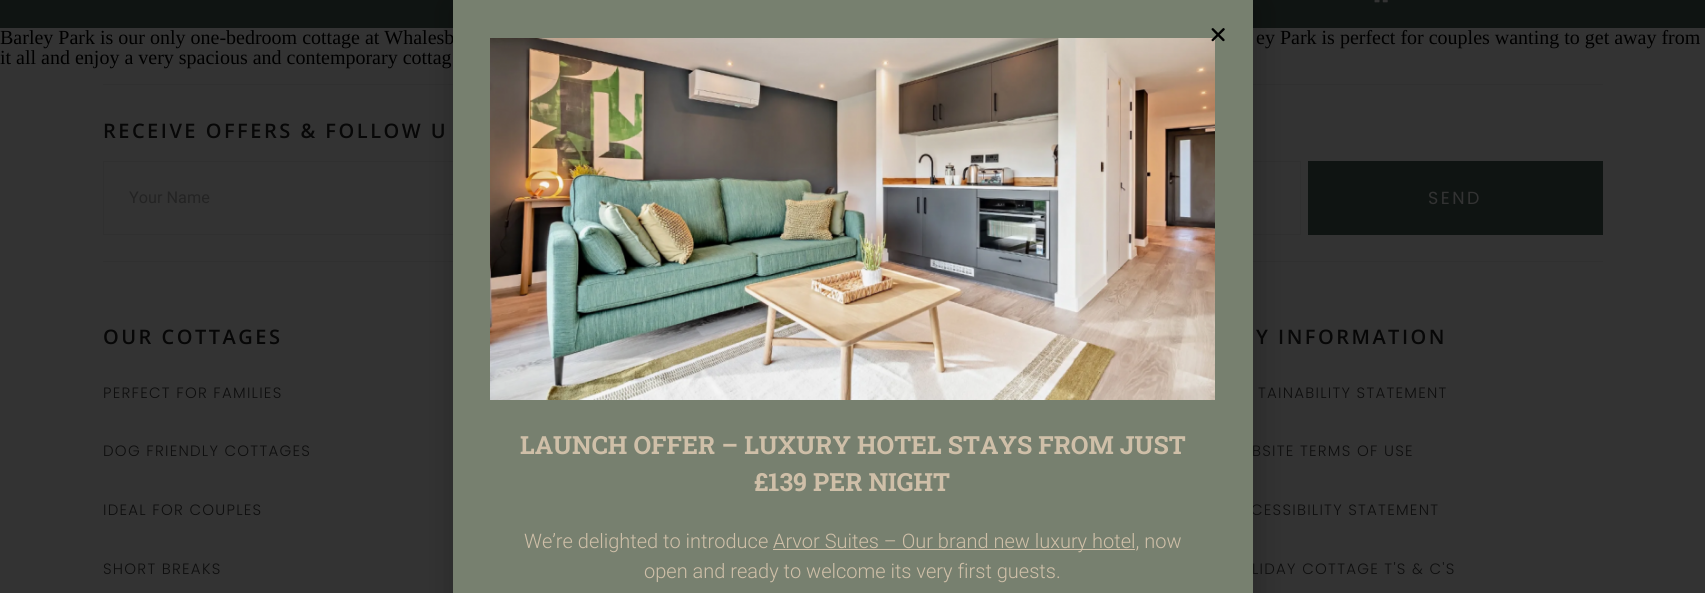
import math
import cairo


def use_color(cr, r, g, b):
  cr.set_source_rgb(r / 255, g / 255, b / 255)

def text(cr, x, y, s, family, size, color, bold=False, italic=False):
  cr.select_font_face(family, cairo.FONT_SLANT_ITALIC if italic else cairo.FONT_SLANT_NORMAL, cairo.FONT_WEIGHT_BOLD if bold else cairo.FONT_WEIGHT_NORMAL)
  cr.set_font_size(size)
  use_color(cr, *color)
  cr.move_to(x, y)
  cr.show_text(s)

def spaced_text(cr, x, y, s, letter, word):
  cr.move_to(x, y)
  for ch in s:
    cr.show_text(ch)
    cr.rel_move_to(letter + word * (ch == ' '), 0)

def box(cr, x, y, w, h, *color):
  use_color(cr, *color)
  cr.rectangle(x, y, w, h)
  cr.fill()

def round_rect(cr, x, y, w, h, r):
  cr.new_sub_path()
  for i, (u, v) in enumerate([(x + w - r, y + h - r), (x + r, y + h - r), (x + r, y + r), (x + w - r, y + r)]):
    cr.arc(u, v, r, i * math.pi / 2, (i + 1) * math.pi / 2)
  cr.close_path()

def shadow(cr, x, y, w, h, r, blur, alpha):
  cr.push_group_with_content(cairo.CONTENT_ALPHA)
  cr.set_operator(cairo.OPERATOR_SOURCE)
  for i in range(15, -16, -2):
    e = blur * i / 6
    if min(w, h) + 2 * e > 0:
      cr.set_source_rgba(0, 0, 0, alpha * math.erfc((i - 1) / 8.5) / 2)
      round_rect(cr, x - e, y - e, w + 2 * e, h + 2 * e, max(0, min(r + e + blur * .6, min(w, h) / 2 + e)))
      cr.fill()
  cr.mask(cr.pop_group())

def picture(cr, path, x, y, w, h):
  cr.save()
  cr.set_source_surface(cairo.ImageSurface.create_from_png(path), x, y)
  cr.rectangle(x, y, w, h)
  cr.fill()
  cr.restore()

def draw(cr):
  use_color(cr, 51, 51, 51)
  cr.paint()
  box(cr, 0, 0, 1705, 28, 15, 20, 18)
  picture(cr, "img_01.png", 1374, 0, 14, 3)
  box(cr, 103, 84, 1500, 1, 48, 48, 48)
  cr.rectangle(103.5, 161.5, 595, 73)
  cr.set_line_width(1)
  cr.stroke()
  cr.rectangle(705.5, 161.5, 595, 73)
  cr.stroke()
  box(cr, 1308, 161, 295, 74, 15, 20, 18)
  box(cr, 103, 261, 1500, 1, 48, 48, 48)
  use_color(cr, 0, 0, 0)
  shadow(cr, 451, 6, 808, 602, 0, 14.5, 0.2)
  text(cr, 0, 44, "Barley Park is our only one-bedroom cottage at Whalesb", "Liberation Serif", 20, (0, 0, 0))
  text(cr, 1256, 44, "ey Park is perfect for couples wanting to get away from", "Liberation Serif", 20, (0, 0, 0))
  text(cr, 0, 64, "it all and enjoy a very spacious and contemporary cottag", "Liberation Serif", 20, (0, 0, 0))
  cr.select_font_face("Open Sans SemiBold")
  use_color(cr, 7, 7, 7)
  spaced_text(cr, 103, 138, "RECEIVE OFFERS & FOLLOW U", 2.5, 0)
  text(cr, 129, 203, "Your Name", "Roboto", 16.25, (35, 35, 35))
  cr.select_font_face("Poppins")
  cr.set_font_size(17.5)
  use_color(cr, 51, 51, 51)
  spaced_text(cr, 1428, 204, "SEND", 2.5, 0)
  cr.select_font_face("Open Sans SemiBold")
  cr.set_font_size(20)
  use_color(cr, 7, 7, 7)
  spaced_text(cr, 103, 344, "OUR COTTAGES", 2.5, 0)
  cr.select_font_face("Poppins Light")
  cr.set_font_size(15)
  use_color(cr, 14, 14, 14)
  spaced_text(cr, 103, 398, "PERFECT FOR FAMILIES", 1.25, 0)
  spaced_text(cr, 103, 456, "DOG FRIENDLY COTTAGES", 1.25, 0)
  spaced_text(cr, 103, 515, "IDEAL FOR COUPLES", 1.25, 0)
  spaced_text(cr, 103, 574, "SHORT BREAKS", 1.25, 0)
  cr.select_font_face("Open Sans SemiBold")
  cr.set_font_size(20)
  use_color(cr, 7, 7, 7)
  spaced_text(cr, 1256, 344, "Y INFORMATION", 2.5, 0)
  cr.select_font_face("Poppins Light")
  cr.set_font_size(15)
  use_color(cr, 14, 14, 14)
  spaced_text(cr, 1258, 398, "TAINABILITY STATEMENT", 1.25, 0)
  spaced_text(cr, 1252, 456, "BSITE TERMS OF USE", 1.25, 0)
  spaced_text(cr, 1251, 515, "CESSIBILITY STATEMENT", 1.25, 0)
  spaced_text(cr, 1252, 574, "LIDAY COTTAGE T'S & C'S", 1.25, 0)
  box(cr, 453, 0, 800, 593, 119, 128, 111)
  picture(cr, "img_03.png", 490, 38, 725, 362)
  picture(cr, "img_02.png", 1211, 28, 14, 14)
  text(cr, 520, 454, "LAUNCH OFFER – LUXURY HOTEL STAYS FROM JUST", "Roboto Slab", 25, (207, 191, 168), bold=True)
  text(cr, 754, 491, "£139 PER NIGHT", "Roboto Slab", 25, (207, 191, 168), bold=True)
  text(cr, 524, 548, "We’re delighted to introduce", "Roboto Light", 20, (207, 191, 168))
  box(cr, 773, 549, 362, 1, 207, 191, 168)
  text(cr, 773, 548, "Arvor Suites – Our brand new luxury hotel, now", "Roboto Light", 20, (207, 191, 168))
  text(cr, 644, 578, "open and ready to welcome its very first guests.", "Roboto Light", 20, (207, 191, 168))


surface = cairo.ImageSurface(cairo.FORMAT_RGB24, 1705, 593)
cr = cairo.Context(surface)
options = cairo.FontOptions()
options.set_hint_metrics(cairo.HINT_METRICS_OFF)
options.set_hint_style(cairo.HINT_STYLE_NONE)
cr.set_font_options(options)
cr.set_miter_limit(4)
draw(cr)
surface.write_to_png("out.png")
